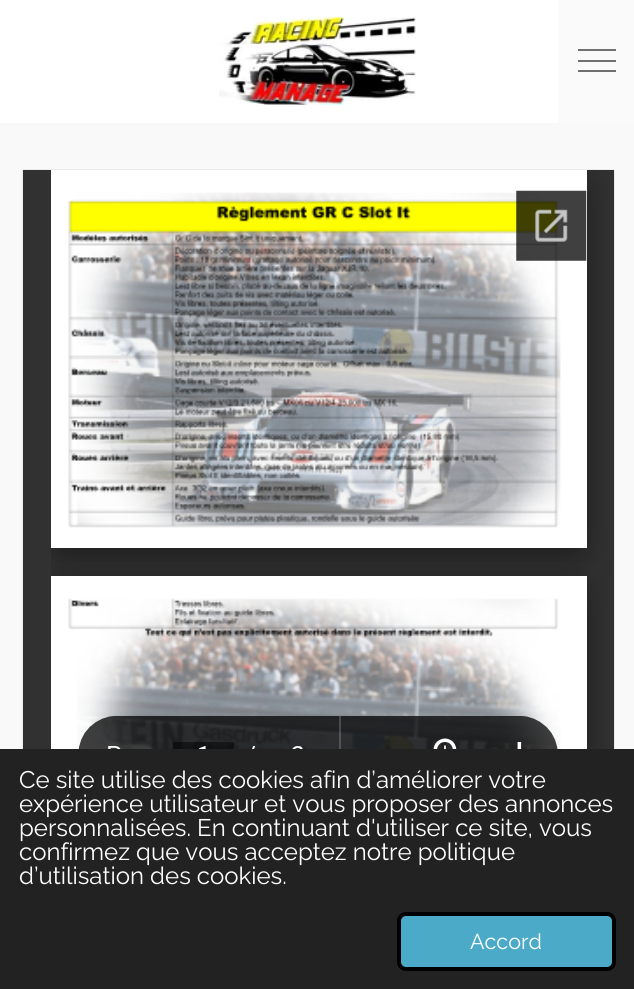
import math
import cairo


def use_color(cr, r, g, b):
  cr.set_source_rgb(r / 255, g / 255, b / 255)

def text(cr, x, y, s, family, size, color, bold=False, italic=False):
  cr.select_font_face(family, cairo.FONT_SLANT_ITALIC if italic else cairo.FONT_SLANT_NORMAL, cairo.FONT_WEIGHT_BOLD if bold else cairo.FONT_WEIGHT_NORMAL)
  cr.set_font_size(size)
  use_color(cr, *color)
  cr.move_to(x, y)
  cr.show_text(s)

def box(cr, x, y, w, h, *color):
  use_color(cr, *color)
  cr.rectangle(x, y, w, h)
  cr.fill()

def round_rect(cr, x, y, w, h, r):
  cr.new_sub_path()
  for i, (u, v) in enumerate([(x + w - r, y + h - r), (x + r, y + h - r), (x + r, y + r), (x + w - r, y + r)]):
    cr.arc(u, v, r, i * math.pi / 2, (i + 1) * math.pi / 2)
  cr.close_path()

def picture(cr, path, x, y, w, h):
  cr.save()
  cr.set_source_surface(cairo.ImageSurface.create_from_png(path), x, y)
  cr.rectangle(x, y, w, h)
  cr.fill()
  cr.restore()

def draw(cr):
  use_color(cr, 255, 255, 255)
  cr.paint()
  picture(cr, "img_01.png", 219, 17, 197, 88)
  box(cr, 558, 0, 76, 123, 250, 250, 250)
  box(cr, 578, 60, 38, 2, 112, 112, 112)
  box(cr, 578, 49, 38, 2, 112, 112, 112)
  box(cr, 578, 70, 38, 2, 112, 112, 112)
  box(cr, 0, 123, 634, 626, 249, 249, 249)
  picture(cr, "img_02.png", 22, 169, 593, 580)
  box(cr, 0, 749, 634, 240, 34, 34, 34)
  use_color(cr, 76, 170, 201)
  round_rect(cr, 399, 914, 215, 55, 7)
  cr.fill_preserve()
  use_color(cr, 0, 0, 0)
  cr.set_line_width(4)
  cr.stroke()
  text(cr, 19, 788, "Ce site utilise des cookies afin d’améliorer votre", "Raleway", 24, (255, 255, 255))
  text(cr, 19, 812, "expérience utilisateur et vous proposer des annonces", "Raleway", 24, (255, 255, 255))
  text(cr, 19, 836, "personnalisées. En continuant d'utiliser ce site, vous", "Raleway", 24, (255, 255, 255))
  text(cr, 19, 860, "confirmez que vous acceptez notre politique", "Raleway", 24, (255, 255, 255))
  text(cr, 19, 884, "d’utilisation des cookies.", "Raleway", 24, (255, 255, 255))
  text(cr, 470, 949, "Accord", "Raleway", 21.5, (255, 255, 255))


surface = cairo.ImageSurface(cairo.FORMAT_RGB24, 634, 989)
cr = cairo.Context(surface)
options = cairo.FontOptions()
options.set_hint_metrics(cairo.HINT_METRICS_OFF)
options.set_hint_style(cairo.HINT_STYLE_NONE)
cr.set_font_options(options)
cr.set_miter_limit(4)
draw(cr)
surface.write_to_png("out.png")
